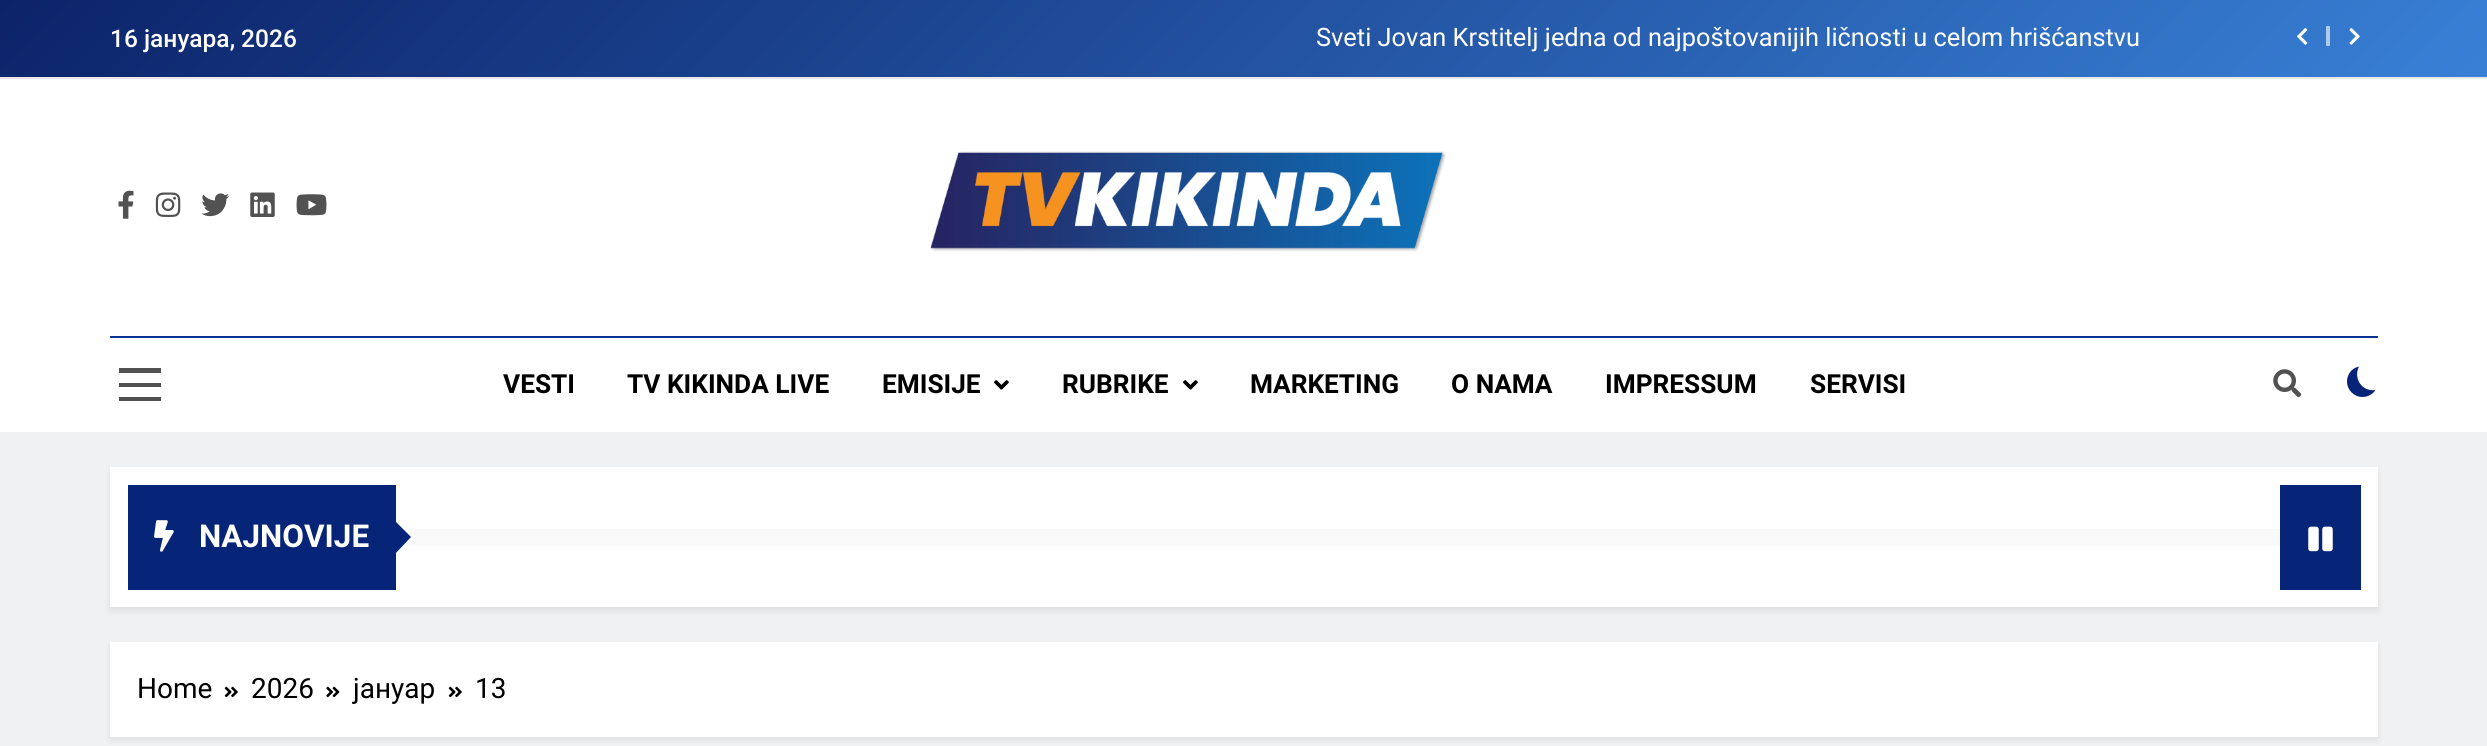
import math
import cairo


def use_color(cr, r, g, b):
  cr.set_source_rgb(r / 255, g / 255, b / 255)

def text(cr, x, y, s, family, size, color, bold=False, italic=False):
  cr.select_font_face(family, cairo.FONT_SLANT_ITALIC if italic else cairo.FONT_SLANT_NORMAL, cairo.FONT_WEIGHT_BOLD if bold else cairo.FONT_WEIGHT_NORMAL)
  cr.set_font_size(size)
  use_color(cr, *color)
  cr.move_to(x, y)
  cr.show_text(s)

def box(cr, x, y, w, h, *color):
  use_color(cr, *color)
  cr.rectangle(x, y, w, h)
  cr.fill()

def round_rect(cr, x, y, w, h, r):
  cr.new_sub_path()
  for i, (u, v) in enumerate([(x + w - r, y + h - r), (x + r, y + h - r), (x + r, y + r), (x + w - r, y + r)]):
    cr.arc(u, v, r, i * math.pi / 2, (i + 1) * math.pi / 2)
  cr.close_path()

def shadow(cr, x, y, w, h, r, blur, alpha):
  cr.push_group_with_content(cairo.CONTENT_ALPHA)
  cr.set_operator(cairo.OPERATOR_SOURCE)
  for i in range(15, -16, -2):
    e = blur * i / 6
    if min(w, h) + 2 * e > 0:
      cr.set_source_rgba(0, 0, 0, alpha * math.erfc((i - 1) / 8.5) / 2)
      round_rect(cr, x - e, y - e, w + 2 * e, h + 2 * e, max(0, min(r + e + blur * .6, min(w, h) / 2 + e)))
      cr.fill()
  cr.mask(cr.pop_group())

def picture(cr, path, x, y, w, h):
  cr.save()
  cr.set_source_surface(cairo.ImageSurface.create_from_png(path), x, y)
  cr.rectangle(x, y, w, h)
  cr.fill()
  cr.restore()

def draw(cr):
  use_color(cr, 240, 241, 242)
  cr.paint()
  gradient = cairo.LinearGradient(603, -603, 1886, 680)
  gradient.add_color_stop_rgba(0, 0.047, 0.137, 0.412, 1)
  gradient.add_color_stop_rgba(1, 0.22, 0.502, 0.839, 1)
  cr.set_source(gradient)
  cr.rectangle(0, 0, 2487, 77)
  cr.fill()
  box(cr, 0, 77, 2487, 2, 232, 232, 232)
  picture(cr, "img_01.png", 2297, 28, 11, 17)
  box(cr, 2326, 26, 4, 20, 174, 201, 235)
  picture(cr, "img_02.png", 2349, 28, 11, 17)
  box(cr, 0, 79, 2487, 353, 255, 255, 255)
  picture(cr, "img_03.png", 118, 190, 16, 29)
  picture(cr, "img_04.png", 155, 192, 26, 25)
  picture(cr, "img_05.png", 201, 193, 29, 24)
  picture(cr, "img_06.png", 250, 192, 25, 25)
  picture(cr, "img_07.png", 296, 194, 31, 22)
  picture(cr, "img_08.png", 930, 151, 516, 101)
  box(cr, 110, 336, 2268, 2, 10, 52, 148)
  box(cr, 119, 368, 42, 5, 82, 82, 82)
  box(cr, 119, 383, 42, 4, 82, 82, 82)
  box(cr, 119, 397, 42, 4, 82, 82, 82)
  picture(cr, "img_09.png", 994, 380, 15, 10)
  picture(cr, "img_09.png", 1183, 380, 15, 10)
  picture(cr, "img_10.png", 2273, 369, 29, 29)
  use_color(cr, 7, 37, 120)
  cr.new_path()
  cr.move_to(2375.5, 390)
  cr.curve_to(2362, 392, 2353, 378.5, 2359, 366.5)
  cr.curve_to(2352, 368, 2347, 374, 2347, 381.5)
  cr.curve_to(2347, 390, 2354, 397, 2362.5, 397)
  cr.curve_to(2368, 397, 2373, 394, 2375.5, 390)
  cr.close_path()
  cr.fill()
  use_color(cr, 0, 0, 0)
  shadow(cr, 110, 471, 2268, 140, 0, 3.5, 0.08)
  box(cr, 110, 467, 2268, 140, 255, 255, 255)
  box(cr, 128, 485, 268, 105, 7, 37, 120)
  picture(cr, "img_11.png", 154, 520, 20, 32)
  box(cr, 402, 529, 1878, 17, 249, 249, 249)
  use_color(cr, 7, 37, 120)
  cr.new_path()
  cr.move_to(394, 555)
  cr.line_to(394, 520)
  cr.line_to(411, 537)
  cr.close_path()
  cr.fill()
  box(cr, 2280, 485, 81, 105, 7, 37, 120)
  picture(cr, "img_12.png", 2308, 526, 25, 26)
  use_color(cr, 0, 0, 0)
  shadow(cr, 110, 646, 2268, 94, 0, 3.5, 0.08)
  box(cr, 110, 642, 2268, 95, 255, 255, 255)
  picture(cr, "img_13.png", 224, 686, 14, 12)
  picture(cr, "img_14.png", 326, 686, 14, 12)
  picture(cr, "img_13.png", 448, 686, 14, 12)
  text(cr, 110, 47, "16 јануара, 2026", "Roboto Medium", 24.5, (255, 255, 255))
  text(cr, 1316, 46, "Sveti Jovan Krstitelj jedna od najpoštovanijih ličnosti u celom hrišćanstvu", "Roboto", 25.4, (255, 255, 255))
  text(cr, 503, 393, "VESTI", "Roboto", 26.25, (0, 0, 0), bold=True)
  text(cr, 627, 393, "TV KIKINDA LIVE", "Roboto", 26.25, (0, 0, 0), bold=True)
  text(cr, 882, 393, "EMISIJE", "Roboto", 26.25, (0, 0, 0), bold=True)
  text(cr, 1062, 393, "RUBRIKE", "Roboto", 26.25, (0, 0, 0), bold=True)
  text(cr, 1250, 393, "MARKETING", "Roboto", 26.25, (0, 0, 0), bold=True)
  text(cr, 1451, 393, "O NAMA", "Roboto", 26.25, (0, 0, 0), bold=True)
  text(cr, 1605, 393, "IMPRESSUM", "Roboto", 26.25, (0, 0, 0), bold=True)
  text(cr, 1810, 393, "SERVISI", "Roboto", 26.25, (0, 0, 0), bold=True)
  text(cr, 199, 547, "NAJNOVIJE", "Roboto", 31.5, (255, 255, 255), bold=True)
  text(cr, 137, 698, "Home", "Roboto", 28, (0, 0, 0))
  text(cr, 251, 698, "2026", "Roboto", 28, (0, 0, 0))
  text(cr, 353, 698, "јануар", "Roboto", 28, (0, 0, 0))
  text(cr, 475, 698, "13", "Roboto", 28, (0, 0, 0))


surface = cairo.ImageSurface(cairo.FORMAT_RGB24, 2487, 746)
cr = cairo.Context(surface)
options = cairo.FontOptions()
options.set_hint_metrics(cairo.HINT_METRICS_OFF)
options.set_hint_style(cairo.HINT_STYLE_NONE)
cr.set_font_options(options)
cr.set_miter_limit(4)
draw(cr)
surface.write_to_png("out.png")
